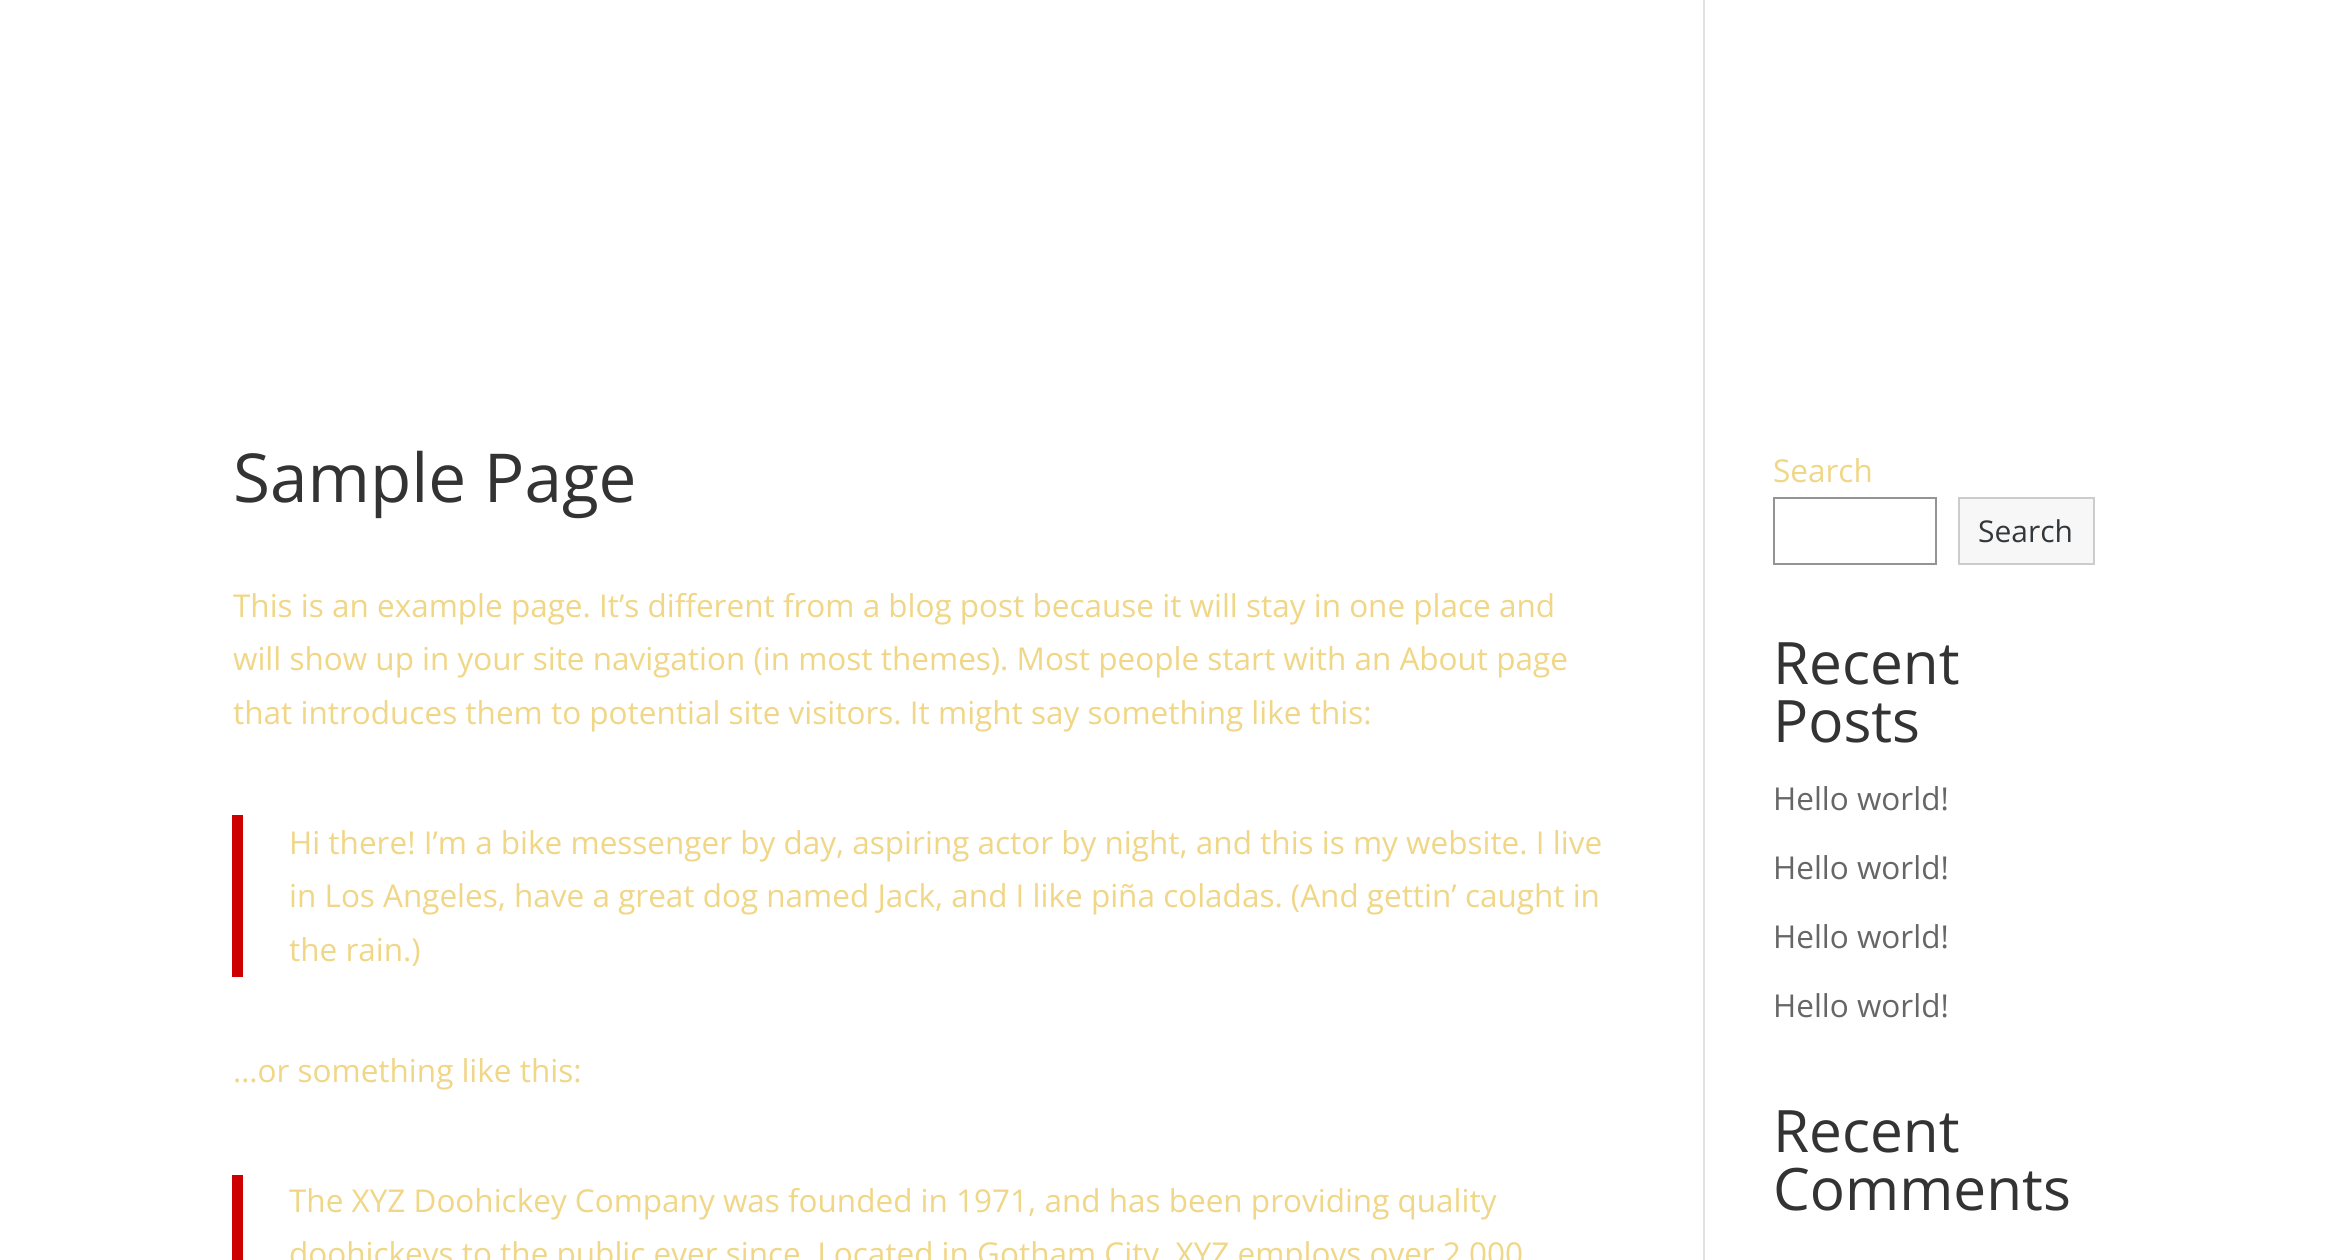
import math
import cairo


def use_color(cr, r, g, b):
  cr.set_source_rgb(r / 255, g / 255, b / 255)

def text(cr, x, y, s, family, size, color, bold=False, italic=False):
  cr.select_font_face(family, cairo.FONT_SLANT_ITALIC if italic else cairo.FONT_SLANT_NORMAL, cairo.FONT_WEIGHT_BOLD if bold else cairo.FONT_WEIGHT_NORMAL)
  cr.set_font_size(size)
  use_color(cr, *color)
  cr.move_to(x, y)
  cr.show_text(s)

def box(cr, x, y, w, h, *color):
  use_color(cr, *color)
  cr.rectangle(x, y, w, h)
  cr.fill()

def draw(cr):
  use_color(cr, 255, 255, 255)
  cr.paint()
  box(cr, 1703, 0, 2, 1260, 226, 226, 226)
  box(cr, 232, 815, 11, 162, 204, 0, 0)
  box(cr, 232, 1175, 11, 85, 204, 0, 0)
  cr.rectangle(1774, 498, 162, 66)
  use_color(cr, 148, 148, 148)
  cr.stroke()
  use_color(cr, 247, 247, 247)
  cr.rectangle(1959, 498, 135, 66)
  cr.fill_preserve()
  use_color(cr, 204, 204, 204)
  cr.stroke()
  text(cr, 233, 502, "Sample Page", "Open Sans", 67.5, (51, 51, 51))
  text(cr, 233, 617, "This is an example page. It’s different from a blog post because it will stay in one place and", "Open Sans", 31.5, (240, 214, 135))
  text(cr, 233, 670, "will show up in your site navigation (in most themes). Most people start with an About page", "Open Sans", 31.5, (240, 214, 135))
  text(cr, 233, 724, "that introduces them to potential site visitors. It might say something like this:", "Open Sans", 31.5, (240, 214, 135))
  text(cr, 289, 854, "Hi there! I’m a bike messenger by day, aspiring actor by night, and this is my website. I live", "Open Sans", 31.5, (240, 214, 135))
  text(cr, 289, 907, "in Los Angeles, have a great dog named Jack, and I like piña coladas. (And gettin’ caught in", "Open Sans", 31.5, (240, 214, 135))
  text(cr, 289, 961, "the rain.)", "Open Sans", 31.5, (240, 214, 135))
  text(cr, 233, 1082, "…or something like this:", "Open Sans", 31.5, (240, 214, 135))
  text(cr, 289, 1212, "The XYZ Doohickey Company was founded in 1971, and has been providing quality", "Open Sans", 31.5, (240, 214, 135))
  text(cr, 289, 1265, "doohickeys to the public ever since. Located in Gotham City, XYZ employs over 2,000", "Open Sans", 31.5, (240, 214, 135))
  text(cr, 1773, 482, "Search", "Open Sans", 31.5, (240, 214, 135))
  text(cr, 1978, 542, "Search", "Open Sans", 30, (50, 55, 60))
  text(cr, 1773, 684, "Recent", "Open Sans", 58.5, (51, 51, 51))
  text(cr, 1773, 742, "Posts", "Open Sans", 58.5, (51, 51, 51))
  text(cr, 1773, 810, "Hello world!", "Open Sans", 31.5, (102, 102, 102))
  text(cr, 1773, 879, "Hello world!", "Open Sans", 31.5, (102, 102, 102))
  text(cr, 1773, 948, "Hello world!", "Open Sans", 31.5, (102, 102, 102))
  text(cr, 1773, 1017, "Hello world!", "Open Sans", 31.5, (102, 102, 102))
  text(cr, 1773, 1152, "Recent", "Open Sans", 58.5, (51, 51, 51))
  text(cr, 1773, 1210, "Comments", "Open Sans", 58.5, (51, 51, 51))


surface = cairo.ImageSurface(cairo.FORMAT_RGB24, 2325, 1260)
cr = cairo.Context(surface)
options = cairo.FontOptions()
options.set_hint_metrics(cairo.HINT_METRICS_OFF)
options.set_hint_style(cairo.HINT_STYLE_NONE)
cr.set_font_options(options)
cr.set_miter_limit(4)
draw(cr)
surface.write_to_png("out.png")
